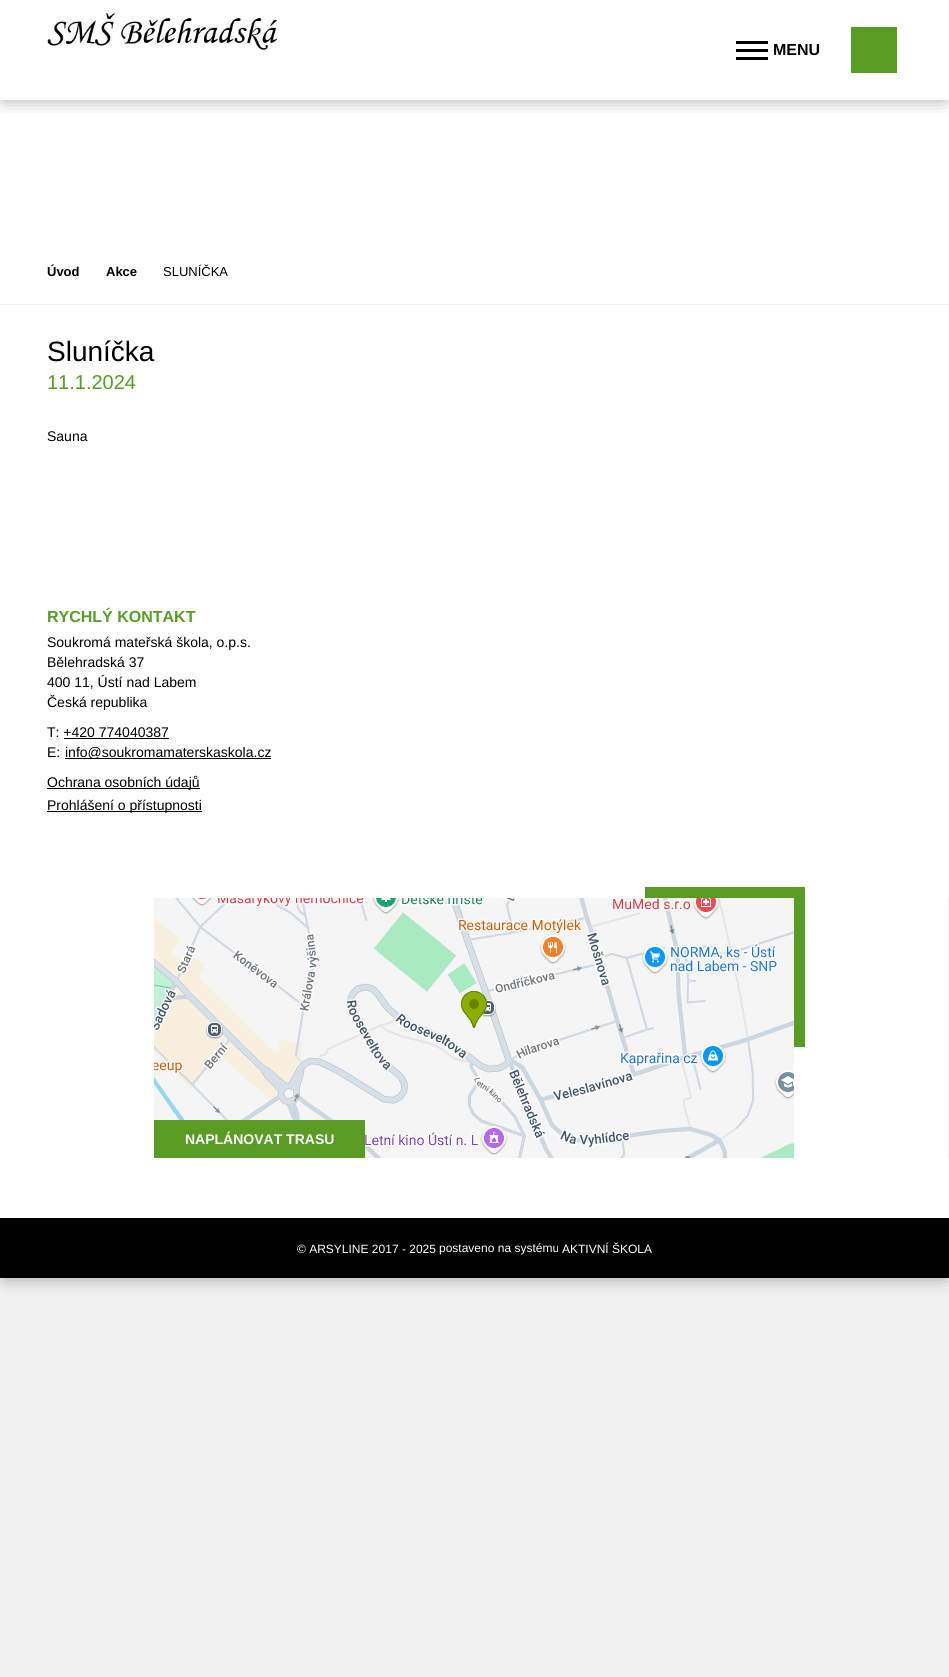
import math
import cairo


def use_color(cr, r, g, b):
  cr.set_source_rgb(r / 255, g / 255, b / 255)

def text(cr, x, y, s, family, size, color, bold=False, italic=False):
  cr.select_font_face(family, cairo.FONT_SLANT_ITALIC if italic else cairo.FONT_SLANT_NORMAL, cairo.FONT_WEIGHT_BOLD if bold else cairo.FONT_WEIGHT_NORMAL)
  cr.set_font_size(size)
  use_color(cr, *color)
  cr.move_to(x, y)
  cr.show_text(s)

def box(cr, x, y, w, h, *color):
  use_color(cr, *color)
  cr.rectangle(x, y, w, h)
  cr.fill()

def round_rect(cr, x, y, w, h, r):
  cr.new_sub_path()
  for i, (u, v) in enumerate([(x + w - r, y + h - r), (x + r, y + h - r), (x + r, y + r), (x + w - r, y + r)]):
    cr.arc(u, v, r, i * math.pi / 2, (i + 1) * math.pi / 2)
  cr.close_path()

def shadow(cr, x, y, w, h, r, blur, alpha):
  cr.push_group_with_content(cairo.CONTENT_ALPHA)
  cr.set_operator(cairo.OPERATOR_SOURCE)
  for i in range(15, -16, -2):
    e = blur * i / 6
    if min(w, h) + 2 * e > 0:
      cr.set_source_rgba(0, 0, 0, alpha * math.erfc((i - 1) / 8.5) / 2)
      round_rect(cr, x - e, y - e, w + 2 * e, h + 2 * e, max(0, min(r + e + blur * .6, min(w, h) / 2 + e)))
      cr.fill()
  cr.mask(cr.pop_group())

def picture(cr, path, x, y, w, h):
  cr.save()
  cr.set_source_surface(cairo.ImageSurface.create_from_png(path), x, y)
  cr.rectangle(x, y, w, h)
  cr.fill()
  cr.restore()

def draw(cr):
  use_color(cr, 241, 241, 241)
  cr.paint()
  use_color(cr, 0, 0, 0)
  shadow(cr, 5, 5, 939, 1268, 0, 10, 0.6)
  box(cr, 0, 0, 949, 1218, 255, 255, 255)
  cr.save()
  cr.rectangle(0, 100, 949, 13)
  cr.clip()
  use_color(cr, 0, 0, 0)
  shadow(cr, 5, 5, 939, 90, 0, 10, 0.6)
  cr.restore()
  picture(cr, "img_01.png", 47, 13, 231, 37)
  box(cr, 736, 49, 32, 3, 0, 0, 0)
  box(cr, 736, 41, 32, 3, 0, 0, 0)
  box(cr, 736, 57, 32, 3, 0, 0, 0)
  box(cr, 851, 27, 46, 46, 88, 156, 36)
  box(cr, 0, 304, 949, 1, 242, 242, 242)
  box(cr, 64, 738, 105, 1, 0, 0, 0)
  box(cr, 65, 758, 206, 1, 0, 0, 0)
  box(cr, 47, 788, 153, 1, 0, 0, 0)
  box(cr, 47, 811, 155, 1, 0, 0, 0)
  box(cr, 948, 898, 1, 260, 240, 240, 240)
  box(cr, 645, 887, 160, 160, 88, 156, 36)
  picture(cr, "img_02.png", 154, 898, 640, 260)
  box(cr, 154, 1120, 211, 38, 88, 156, 36)
  box(cr, 0, 1218, 949, 60, 0, 0, 0)
  text(cr, 773, 55, "MENU", "Liberation Sans", 16, (0, 0, 0), bold=True)
  text(cr, 47, 276, "Úvod", "Liberation Sans", 13, (0, 0, 0), bold=True)
  text(cr, 106, 276, "Akce", "Liberation Sans", 13, (0, 0, 0), bold=True)
  text(cr, 163, 276, "SLUNÍČKA", "Liberation Sans", 13, (0, 0, 0))
  text(cr, 47, 361, "Sluníčka", "Liberation Sans", 28, (0, 0, 0))
  text(cr, 47, 389, "11.1.2024", "Liberation Sans", 20, (88, 156, 36))
  text(cr, 47, 441, "Sauna", "Liberation Sans", 14, (0, 0, 0))
  text(cr, 47, 622, "RYCHLÝ KONTAKT", "Liberation Sans", 16, (88, 156, 36), bold=True)
  text(cr, 47, 647, "Soukromá mateřská škola, o.p.s.", "Liberation Sans", 14, (0, 0, 0))
  text(cr, 47, 667, "Bělehradská 37", "Liberation Sans", 14, (0, 0, 0))
  text(cr, 47, 687, "400 11, Ústí nad Labem", "Liberation Sans", 14, (0, 0, 0))
  text(cr, 47, 707, "Česká republika", "Liberation Sans", 14, (0, 0, 0))
  text(cr, 47, 737, "T: +420 774040387", "Liberation Sans", 14, (0, 0, 0))
  text(cr, 47, 757, "E:", "Liberation Sans", 14, (0, 0, 0))
  text(cr, 65, 757, "info@soukromamaterskaskola.cz", "Liberation Sans", 14, (0, 0, 0))
  text(cr, 47, 787, "Ochrana osobních údajů", "Liberation Sans", 14, (0, 0, 0))
  text(cr, 47, 810, "Prohlášení o přístupnosti", "Liberation Sans", 14, (0, 0, 0))
  text(cr, 185, 1144, "NAPLÁNOVAT TRASU", "Liberation Sans", 14, (255, 255, 255), bold=True)
  text(cr, 297, 1253, "© ARSYLINE 2017 - 2025", "Liberation Sans", 12, (255, 255, 255))
  text(cr, 439, 1252, "postaveno na systému", "Liberation Sans", 12, (255, 255, 255))
  text(cr, 562, 1253, "AKTIVNÍ ŠKOLA", "Liberation Sans", 12, (255, 255, 255))


surface = cairo.ImageSurface(cairo.FORMAT_RGB24, 949, 1677)
cr = cairo.Context(surface)
options = cairo.FontOptions()
options.set_hint_metrics(cairo.HINT_METRICS_OFF)
options.set_hint_style(cairo.HINT_STYLE_NONE)
cr.set_font_options(options)
cr.set_miter_limit(4)
draw(cr)
surface.write_to_png("out.png")
